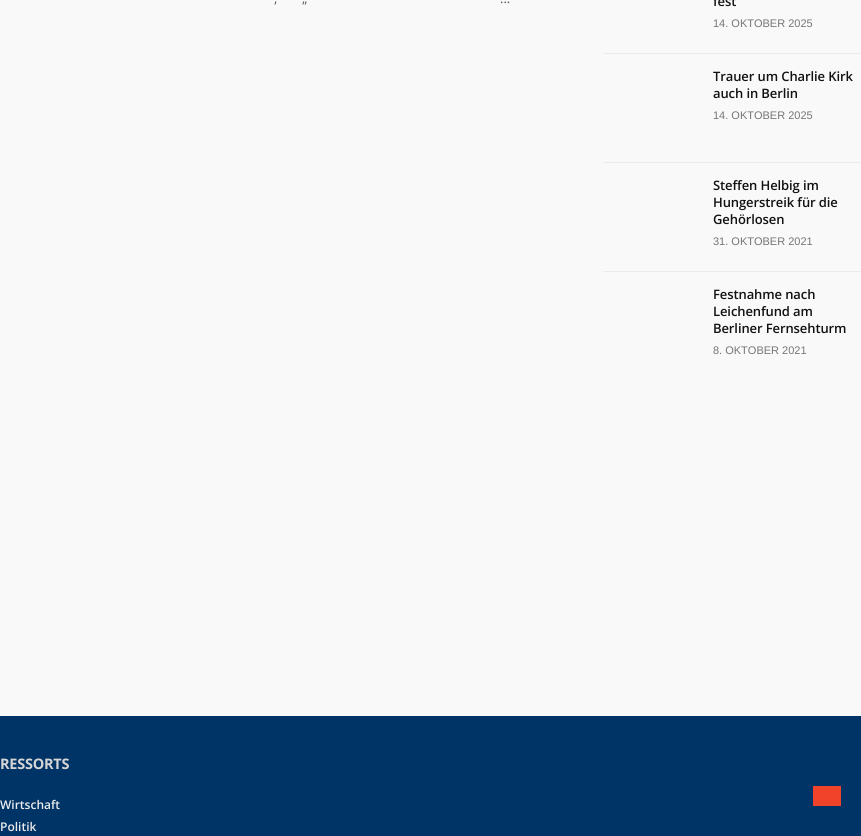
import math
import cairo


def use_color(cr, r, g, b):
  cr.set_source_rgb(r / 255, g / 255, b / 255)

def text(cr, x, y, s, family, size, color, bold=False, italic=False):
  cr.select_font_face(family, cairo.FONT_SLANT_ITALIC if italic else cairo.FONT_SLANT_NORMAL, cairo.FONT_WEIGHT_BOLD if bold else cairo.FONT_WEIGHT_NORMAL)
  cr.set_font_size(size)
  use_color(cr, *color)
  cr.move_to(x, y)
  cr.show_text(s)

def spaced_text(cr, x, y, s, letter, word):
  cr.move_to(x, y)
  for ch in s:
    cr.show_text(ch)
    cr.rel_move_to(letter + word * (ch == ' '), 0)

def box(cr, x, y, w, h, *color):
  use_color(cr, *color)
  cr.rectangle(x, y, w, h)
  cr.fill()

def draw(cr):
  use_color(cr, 249, 249, 249)
  cr.paint()
  box(cr, 603, 53, 258, 1, 235, 235, 235)
  box(cr, 603, 162, 258, 1, 235, 235, 235)
  box(cr, 603, 271, 258, 1, 235, 235, 235)
  box(cr, 0, 716, 861, 120, 0, 52, 102)
  box(cr, 813, 786, 28, 20, 241, 67, 42)
  text(cr, 274, 3, ",", "Open Sans", 13, (87, 87, 87))
  text(cr, 302, 3, "„", "Open Sans", 13, (87, 87, 87))
  text(cr, 500, 3, "...", "Open Sans", 13, (87, 87, 87))
  cr.select_font_face("Open Sans SemiBold")
  use_color(cr, 18, 18, 18)
  spaced_text(cr, 713, 6, "fest", -0.1, 0)
  text(cr, 713, 27, "14. OKTOBER 2025", "Liberation Sans", 11, (117, 117, 117))
  cr.select_font_face("Open Sans SemiBold")
  cr.set_font_size(13)
  use_color(cr, 18, 18, 18)
  spaced_text(cr, 713, 81, "Trauer um Charlie Kirk", -0.1, 0)
  spaced_text(cr, 713, 98, "auch in Berlin", -0.1, 0)
  text(cr, 713, 119, "14. OKTOBER 2025", "Liberation Sans", 11, (117, 117, 117))
  cr.select_font_face("Open Sans SemiBold")
  cr.set_font_size(13)
  use_color(cr, 18, 18, 18)
  spaced_text(cr, 713, 190, "Steffen Helbig im", -0.1, 0)
  spaced_text(cr, 713, 207, "Hungerstreik für die", -0.1, 0)
  spaced_text(cr, 713, 224, "Gehörlosen", -0.1, 0)
  text(cr, 713, 245, "31. OKTOBER 2021", "Liberation Sans", 11, (117, 117, 117))
  cr.select_font_face("Open Sans SemiBold")
  cr.set_font_size(13)
  use_color(cr, 18, 18, 18)
  spaced_text(cr, 713, 299, "Festnahme nach", -0.1, 0)
  spaced_text(cr, 713, 316, "Leichenfund am", -0.1, 0)
  spaced_text(cr, 713, 333, "Berliner Fernsehturm", -0.1, 0)
  text(cr, 713, 354, "8. OKTOBER 2021", "Liberation Sans", 11, (117, 117, 117))
  cr.select_font_face("Open Sans", cairo.FONT_SLANT_NORMAL, cairo.FONT_WEIGHT_BOLD)
  cr.set_font_size(14.5)
  use_color(cr, 214, 214, 214)
  spaced_text(cr, 0, 769, "RESSORTS", -0.25, 0)
  text(cr, 0, 809, "Wirtschaft", "Open Sans SemiBold", 12, (235, 235, 235))
  text(cr, 0, 831, "Politik", "Open Sans SemiBold", 12, (235, 235, 235))


surface = cairo.ImageSurface(cairo.FORMAT_RGB24, 861, 836)
cr = cairo.Context(surface)
options = cairo.FontOptions()
options.set_hint_metrics(cairo.HINT_METRICS_OFF)
options.set_hint_style(cairo.HINT_STYLE_NONE)
cr.set_font_options(options)
cr.set_miter_limit(4)
draw(cr)
surface.write_to_png("out.png")
